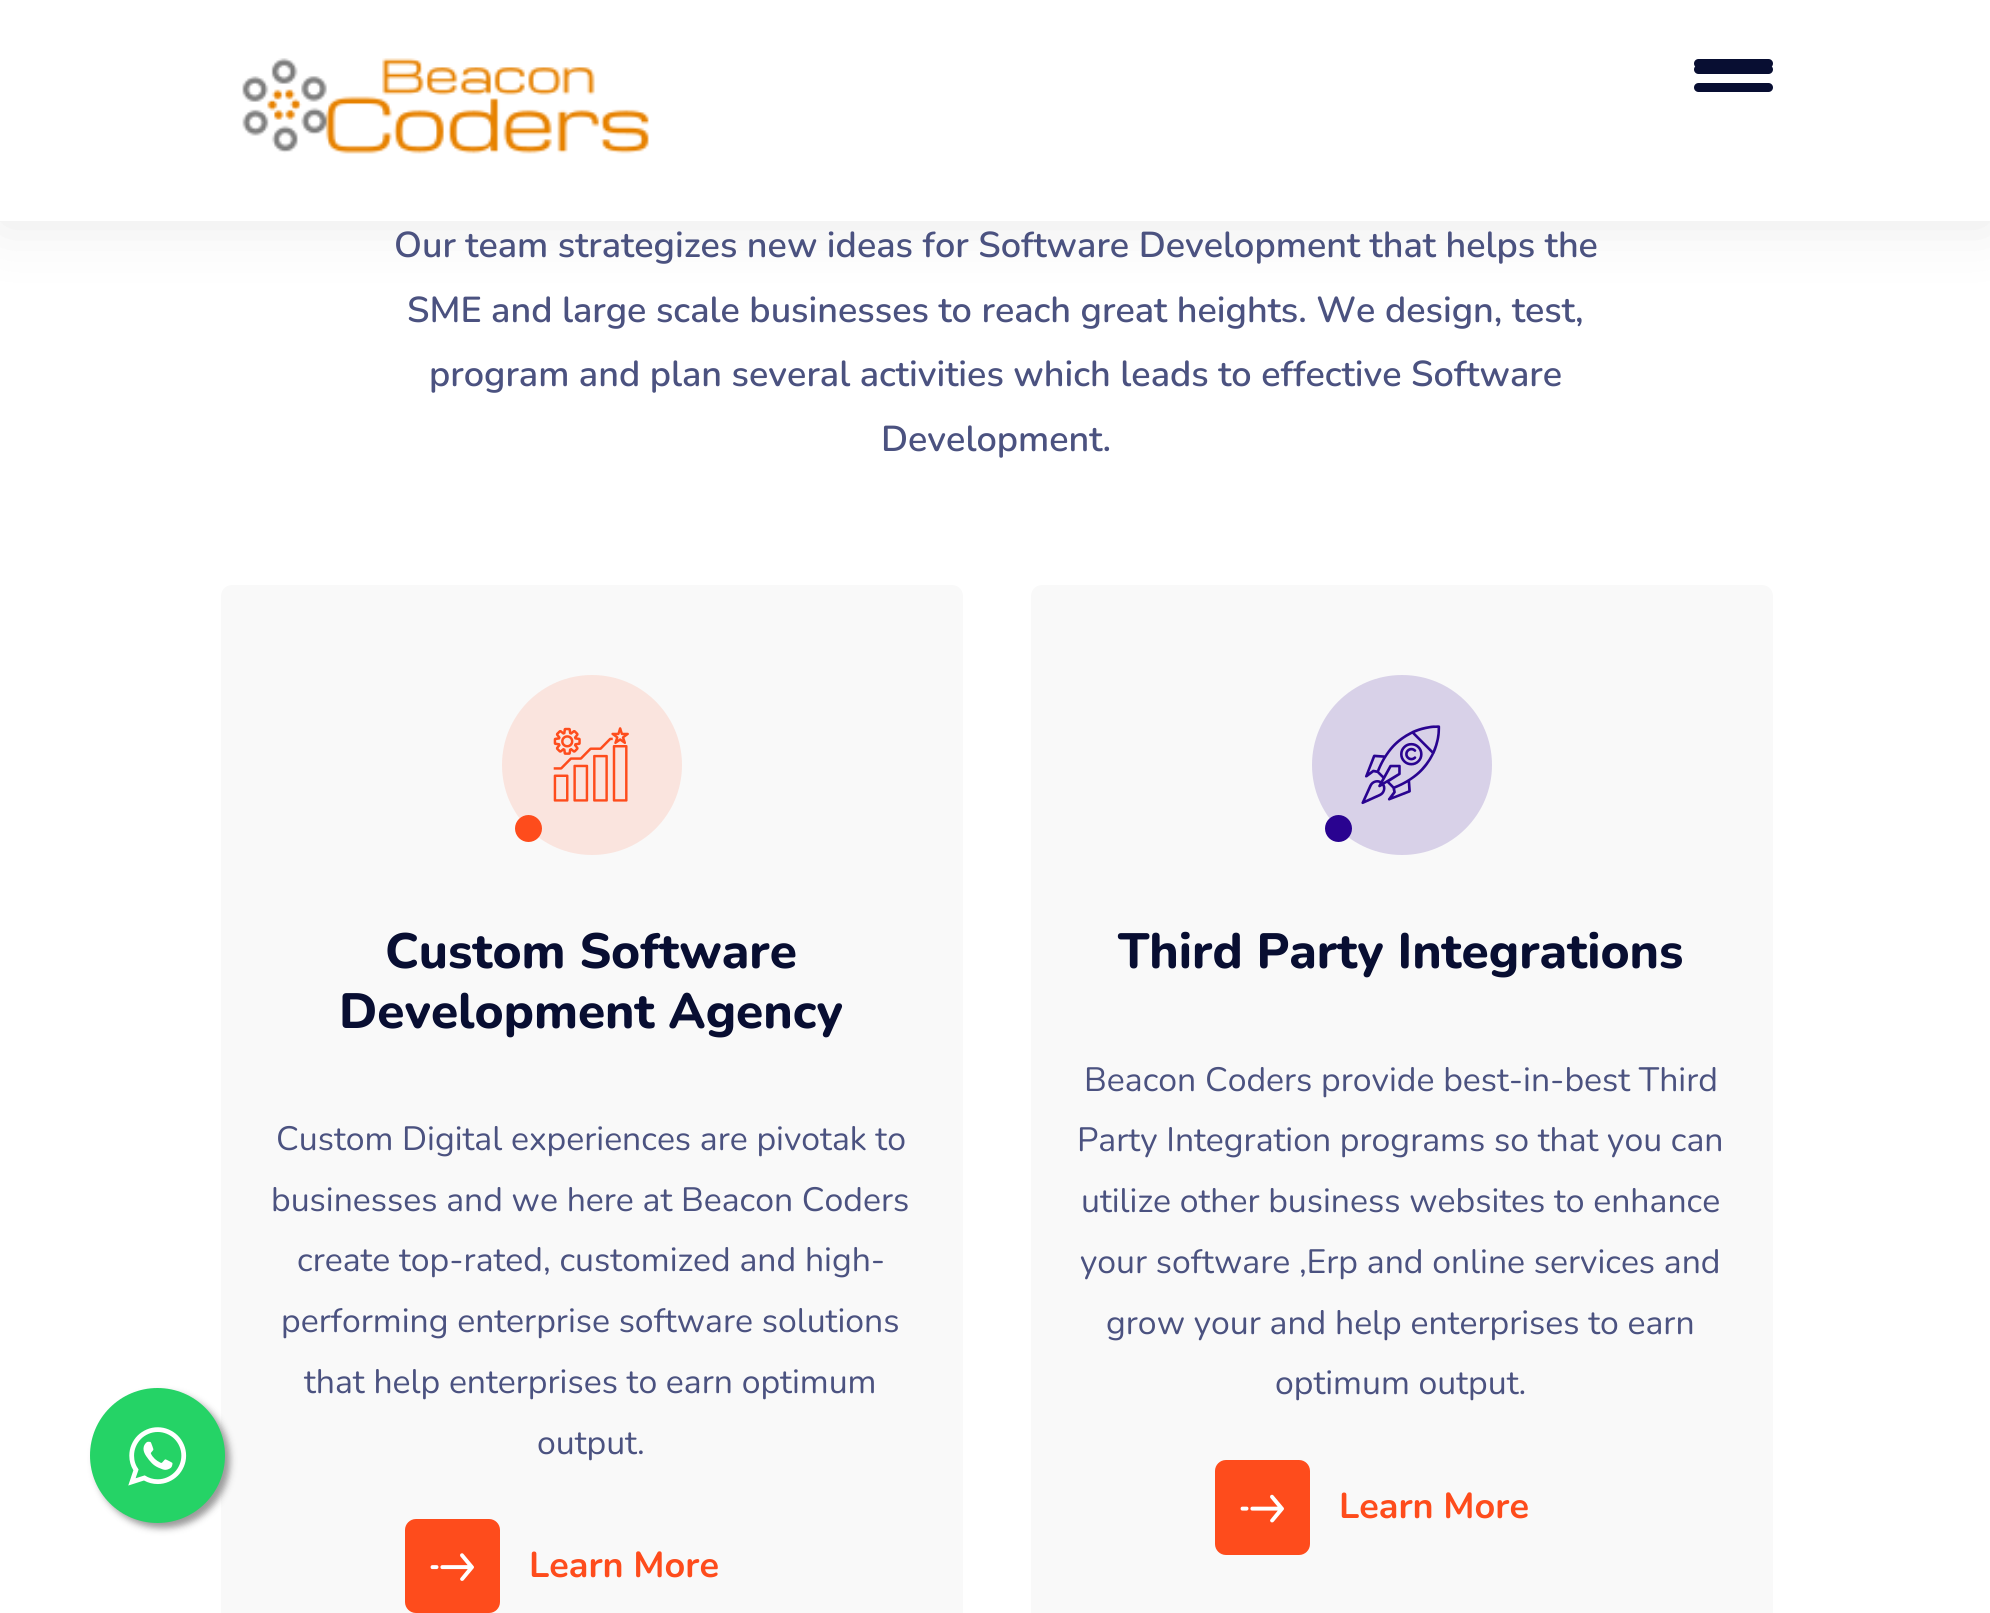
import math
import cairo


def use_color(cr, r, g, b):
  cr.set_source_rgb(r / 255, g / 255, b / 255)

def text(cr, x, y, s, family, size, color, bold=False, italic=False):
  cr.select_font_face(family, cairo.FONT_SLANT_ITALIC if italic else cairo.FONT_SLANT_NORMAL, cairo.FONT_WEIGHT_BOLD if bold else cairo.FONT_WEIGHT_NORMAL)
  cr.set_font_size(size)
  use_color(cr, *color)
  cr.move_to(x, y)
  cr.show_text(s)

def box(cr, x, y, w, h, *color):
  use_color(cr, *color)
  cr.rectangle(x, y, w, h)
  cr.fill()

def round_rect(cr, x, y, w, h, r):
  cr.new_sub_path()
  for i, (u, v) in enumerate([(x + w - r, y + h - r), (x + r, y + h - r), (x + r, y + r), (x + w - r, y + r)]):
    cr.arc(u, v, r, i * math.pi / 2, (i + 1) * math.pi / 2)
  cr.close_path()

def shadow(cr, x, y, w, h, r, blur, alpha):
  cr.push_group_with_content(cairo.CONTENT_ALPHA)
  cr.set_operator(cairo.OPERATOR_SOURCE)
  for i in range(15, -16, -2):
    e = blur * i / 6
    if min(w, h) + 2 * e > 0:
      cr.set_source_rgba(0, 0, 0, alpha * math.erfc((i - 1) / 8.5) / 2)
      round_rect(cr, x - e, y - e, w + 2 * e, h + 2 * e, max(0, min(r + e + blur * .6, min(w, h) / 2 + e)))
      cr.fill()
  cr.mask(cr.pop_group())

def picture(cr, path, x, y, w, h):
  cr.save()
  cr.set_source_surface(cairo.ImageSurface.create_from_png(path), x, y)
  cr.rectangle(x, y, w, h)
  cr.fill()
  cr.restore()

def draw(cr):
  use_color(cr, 255, 255, 255)
  cr.paint()
  use_color(cr, 0, 0, 0)
  shadow(cr, 0, 5, 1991, 220, 0, 31.5, 0.09)
  box(cr, 0, 0, 1990, 221, 255, 255, 255)
  picture(cr, "img_01.png", 242, 58, 407, 96)
  use_color(cr, 8, 14, 50)
  round_rect(cr, 1694, 59, 79, 9, 4.5)
  cr.fill()
  round_rect(cr, 1694, 65, 79, 9, 4.5)
  cr.fill()
  round_rect(cr, 1694, 83, 79, 9, 4.5)
  cr.fill()
  use_color(cr, 249, 249, 249)
  round_rect(cr, 221, 585, 742, 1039, 11)
  cr.fill()
  use_color(cr, 153, 153, 153)
  shadow(cr, 95, 1393, 135, 135, 67.5, 3.5, 1)
  use_color(cr, 37, 211, 102)
  cr.arc(157.5, 1455.5, 67.5, 0, 2 * math.pi)
  cr.fill()
  picture(cr, "img_02.png", 128, 1427, 59, 59)
  use_color(cr, 250, 228, 222)
  cr.arc(592, 765, 90, 0, 2 * math.pi)
  cr.fill()
  picture(cr, "img_03.png", 553, 727, 76, 75)
  use_color(cr, 254, 76, 28)
  cr.arc(528.5, 828.5, 13.5, 0, 2 * math.pi)
  cr.fill()
  round_rect(cr, 405, 1519, 95, 94, 11)
  cr.fill()
  picture(cr, "img_04.png", 430, 1553, 44, 28)
  use_color(cr, 249, 249, 249)
  round_rect(cr, 1031, 585, 742, 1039, 11)
  cr.fill()
  use_color(cr, 216, 209, 232)
  cr.arc(1402, 765, 90, 0, 2 * math.pi)
  cr.fill()
  picture(cr, "img_05.png", 1361, 725, 80, 80)
  use_color(cr, 41, 3, 144)
  cr.arc(1338.5, 828.5, 13.5, 0, 2 * math.pi)
  cr.fill()
  use_color(cr, 254, 76, 28)
  round_rect(cr, 1215, 1460, 95, 95, 11)
  cr.fill()
  picture(cr, "img_06.png", 1240, 1494, 44, 29)
  text(cr, 394, 257, "Our team strategizes new ideas for Software Development that helps the", "Nunito SemiBold", 36, (75, 82, 128))
  text(cr, 407, 322, "SME and large scale businesses to reach great heights. We design, test,", "Nunito SemiBold", 36, (75, 82, 128))
  text(cr, 429, 386, "program and plan several activities which leads to effective Software", "Nunito SemiBold", 36, (75, 82, 128))
  text(cr, 881, 451, "Development.", "Nunito SemiBold", 36, (75, 82, 128))
  text(cr, 385, 968, "Custom Software", "Nunito ExtraBold", 49.5, (8, 14, 50))
  text(cr, 339, 1028, "Development Agency", "Nunito ExtraBold", 49.5, (8, 14, 50))
  text(cr, 276, 1150, "Custom Digital experiences are pivotak to", "Nunito", 33.75, (75, 82, 128))
  text(cr, 271, 1211, "businesses and we here at Beacon Coders", "Nunito", 33.75, (75, 82, 128))
  text(cr, 297, 1271, "create top-rated, customized and high-", "Nunito", 33.75, (75, 82, 128))
  text(cr, 281, 1332, "performing enterprise software solutions", "Nunito", 33.75, (75, 82, 128))
  text(cr, 304, 1393, "that help enterprises to earn optimum", "Nunito", 33.75, (75, 82, 128))
  text(cr, 537, 1454, "output.", "Nunito", 33.75, (75, 82, 128))
  text(cr, 529, 1577, "Learn More", "Nunito", 36, (254, 76, 28), bold=True)
  text(cr, 1118, 968, "Third Party Integrations", "Nunito ExtraBold", 49.5, (8, 14, 50))
  text(cr, 1084, 1091, "Beacon Coders provide best-in-best Third", "Nunito", 33.75, (75, 82, 128))
  text(cr, 1077, 1151, "Party Integration programs so that you can", "Nunito", 33.75, (75, 82, 128))
  text(cr, 1081, 1212, "utilize other business websites to enhance", "Nunito", 33.75, (75, 82, 128))
  text(cr, 1080, 1273, "your software ,Erp and online services and", "Nunito", 33.75, (75, 82, 128))
  text(cr, 1106, 1334, "grow your and help enterprises to earn", "Nunito", 33.75, (75, 82, 128))
  text(cr, 1275, 1394, "optimum output.", "Nunito", 33.75, (75, 82, 128))
  text(cr, 1339, 1518, "Learn More", "Nunito", 36, (254, 76, 28), bold=True)


surface = cairo.ImageSurface(cairo.FORMAT_RGB24, 1990, 1613)
cr = cairo.Context(surface)
options = cairo.FontOptions()
options.set_hint_metrics(cairo.HINT_METRICS_OFF)
options.set_hint_style(cairo.HINT_STYLE_NONE)
cr.set_font_options(options)
cr.set_miter_limit(4)
draw(cr)
surface.write_to_png("out.png")
